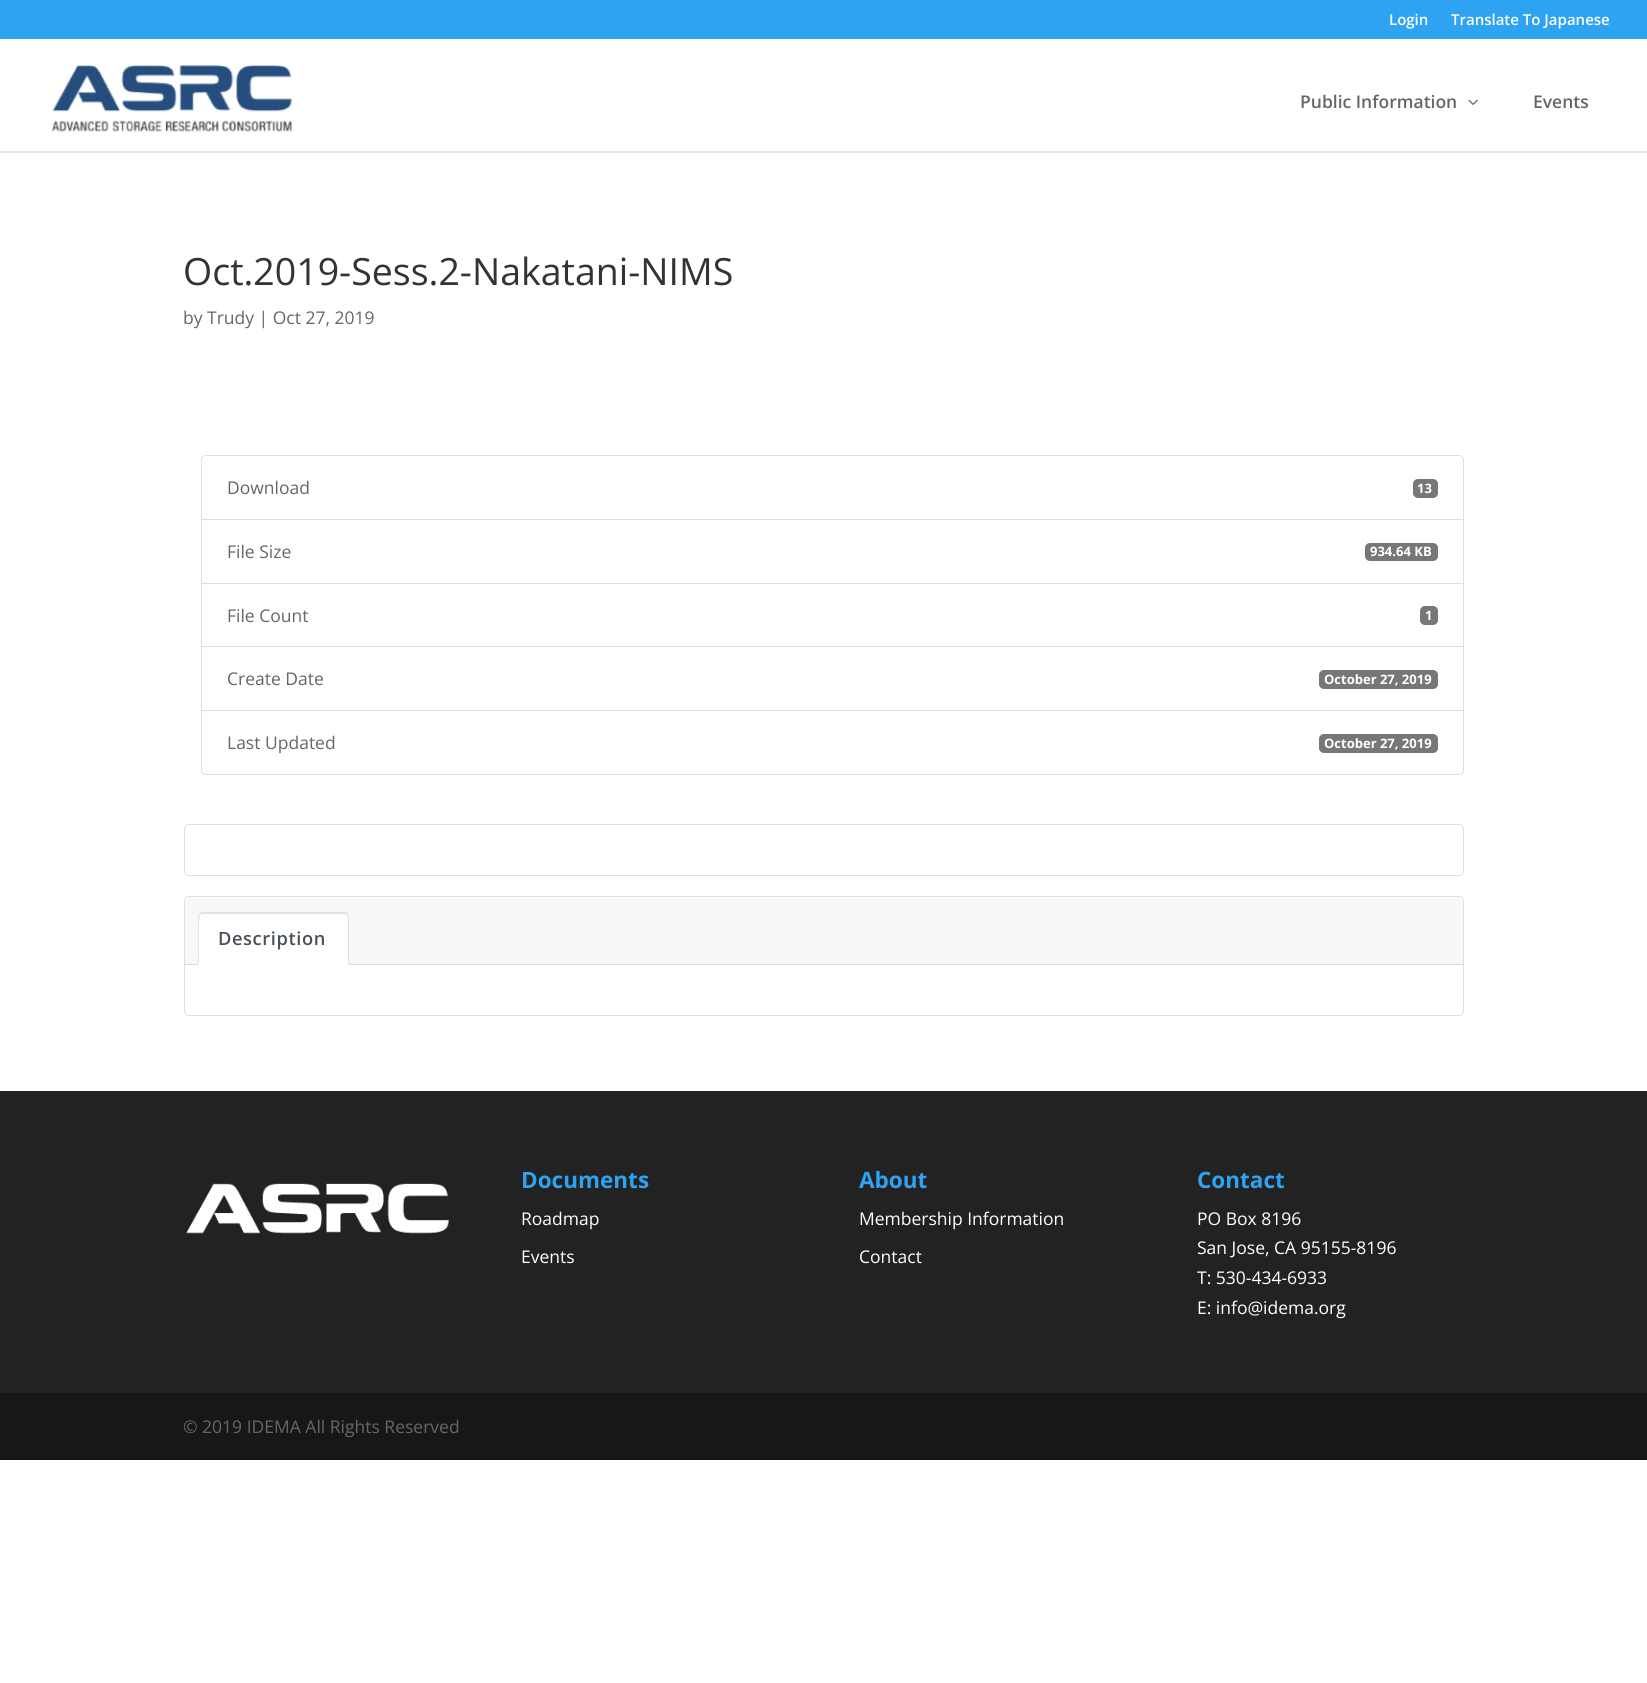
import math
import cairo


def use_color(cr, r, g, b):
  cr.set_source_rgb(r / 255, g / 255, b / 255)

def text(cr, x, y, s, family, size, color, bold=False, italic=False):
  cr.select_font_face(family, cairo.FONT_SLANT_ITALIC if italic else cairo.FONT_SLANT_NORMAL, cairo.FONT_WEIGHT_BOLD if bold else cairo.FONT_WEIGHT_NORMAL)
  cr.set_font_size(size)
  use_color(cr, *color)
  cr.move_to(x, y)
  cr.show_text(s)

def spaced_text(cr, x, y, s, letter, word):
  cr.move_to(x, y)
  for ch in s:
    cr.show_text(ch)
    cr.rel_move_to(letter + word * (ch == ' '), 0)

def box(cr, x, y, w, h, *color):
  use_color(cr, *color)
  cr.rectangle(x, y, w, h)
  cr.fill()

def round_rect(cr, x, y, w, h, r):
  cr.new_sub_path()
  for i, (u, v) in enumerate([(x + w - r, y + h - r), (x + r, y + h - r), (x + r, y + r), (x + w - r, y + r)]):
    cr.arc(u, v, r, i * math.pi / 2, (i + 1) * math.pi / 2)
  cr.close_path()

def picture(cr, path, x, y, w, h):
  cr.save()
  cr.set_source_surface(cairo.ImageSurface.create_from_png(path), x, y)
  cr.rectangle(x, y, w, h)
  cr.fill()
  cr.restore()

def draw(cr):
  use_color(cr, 255, 255, 255)
  cr.paint()
  box(cr, 0, 0, 1647, 39, 46, 163, 242)
  use_color(cr, 230, 230, 230)
  cr.new_path()
  cr.move_to(0, 151)
  cr.line_to(0, 153)
  cr.line_to(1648, 153)
  cr.line_to(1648, 40)
  cr.line_to(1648, 151)
  cr.close_path()
  cr.fill()
  picture(cr, "img_01.png", 51, 65, 242, 67)
  picture(cr, "img_02.png", 1468, 99, 10, 6)
  cr.new_path()
  cr.move_to(206, 455.5)
  cr.line_to(1459, 455.5)
  cr.curve_to(1461.5, 455.5, 1463.5, 457.5, 1463.5, 460)
  cr.line_to(1463.5, 519.5)
  cr.line_to(201.5, 519.5)
  cr.line_to(201.5, 460)
  cr.curve_to(201.5, 457.5, 203.5, 455.5, 206, 455.5)
  cr.close_path()
  use_color(cr, 223, 223, 223)
  cr.set_line_width(1)
  cr.stroke()
  use_color(cr, 119, 119, 119)
  round_rect(cr, 1413, 479, 25, 19, 5)
  cr.fill()
  cr.rectangle(201.5, 519.5, 1262, 64)
  use_color(cr, 223, 223, 223)
  cr.stroke()
  use_color(cr, 119, 119, 119)
  round_rect(cr, 1365, 543, 73, 18, 5)
  cr.fill()
  cr.rectangle(201.5, 583.5, 1262, 64)
  use_color(cr, 223, 223, 223)
  cr.stroke()
  use_color(cr, 119, 119, 119)
  round_rect(cr, 1420, 606, 18, 19, 5)
  cr.fill()
  box(cr, 202, 647, 1261, 1, 255, 255, 255)
  cr.rectangle(201.5, 646.5, 1262, 64)
  use_color(cr, 223, 223, 223)
  cr.stroke()
  use_color(cr, 119, 119, 119)
  round_rect(cr, 1319, 670, 119, 19, 5)
  cr.fill()
  use_color(cr, 255, 255, 255)
  cr.new_path()
  cr.move_to(201.5, 710.5)
  cr.line_to(1463.5, 710.5)
  cr.line_to(1463.5, 770)
  cr.curve_to(1463.5, 772.5, 1461.5, 774.5, 1459, 774.5)
  cr.line_to(206, 774.5)
  cr.curve_to(203.5, 774.5, 201.5, 772.5, 201.5, 770)
  cr.close_path()
  cr.fill_preserve()
  use_color(cr, 223, 223, 223)
  cr.stroke()
  use_color(cr, 119, 119, 119)
  round_rect(cr, 1319, 734, 119, 19, 5)
  cr.fill()
  round_rect(cr, 184.5, 824.5, 1279, 51, 4.5)
  use_color(cr, 223, 223, 223)
  cr.stroke()
  round_rect(cr, 184.5, 896.5, 1279, 119, 4.5)
  cr.stroke()
  use_color(cr, 248, 248, 248)
  cr.new_path()
  cr.move_to(189, 898)
  cr.line_to(1459, 898)
  cr.curve_to(1461, 898, 1463, 900, 1463, 902)
  cr.line_to(1463, 965)
  cr.line_to(185, 965)
  cr.line_to(185, 902)
  cr.curve_to(185, 900, 187, 898, 189, 898)
  cr.close_path()
  cr.fill()
  box(cr, 185, 964, 1278, 1, 217, 217, 217)
  use_color(cr, 255, 255, 255)
  cr.new_path()
  cr.move_to(203, 913)
  cr.line_to(344, 913)
  cr.curve_to(347, 913, 349, 915, 349, 918)
  cr.line_to(349, 965)
  cr.line_to(198, 965)
  cr.line_to(198, 918)
  cr.curve_to(198, 915, 200, 913, 203, 913)
  cr.close_path()
  cr.fill()
  use_color(cr, 222, 226, 230)
  cr.new_path()
  cr.move_to(202, 914)
  cr.line_to(200, 915)
  cr.line_to(199, 914)
  cr.line_to(201, 912)
  cr.line_to(346, 912)
  cr.line_to(348, 914)
  cr.line_to(347, 915)
  cr.line_to(344, 914)
  cr.close_path()
  cr.fill()
  cr.new_path()
  cr.move_to(349, 916)
  cr.line_to(349, 965)
  cr.line_to(348, 964)
  cr.line_to(348, 917)
  cr.line_to(347, 915)
  cr.line_to(348, 914)
  cr.close_path()
  cr.fill()
  use_color(cr, 255, 255, 255)
  cr.new_path()
  cr.move_to(349, 965)
  cr.line_to(348, 964)
  cr.line_to(199, 964)
  cr.line_to(198, 965)
  cr.close_path()
  cr.fill()
  use_color(cr, 222, 226, 230)
  cr.new_path()
  cr.move_to(198, 964)
  cr.line_to(198, 918)
  cr.curve_to(198, 917, 198, 915, 199, 914)
  cr.line_to(200, 915)
  cr.curve_to(198, 917, 199, 958, 199, 964)
  cr.close_path()
  cr.fill()
  box(cr, 0, 1091, 1647, 302, 34, 34, 34)
  picture(cr, "img_03.png", 186, 1183, 263, 51)
  box(cr, 0, 1393, 1647, 67, 23, 23, 23)
  text(cr, 1389, 25, "Login", "Open Sans SemiBold", 15, (255, 255, 255))
  text(cr, 1451, 25, "Translate To Japanese", "Open Sans SemiBold", 15, (255, 255, 255))
  text(cr, 1300, 108, "Public Information", "Open Sans SemiBold", 17.5, (102, 102, 102))
  text(cr, 1533, 108, "Events", "Open Sans SemiBold", 17.5, (102, 102, 102))
  text(cr, 183, 285, "Oct.2019-Sess.2-Nakatani-NIMS", "Open Sans", 37.5, (51, 51, 51))
  text(cr, 183, 324, "by Trudy | Oct 27, 2019", "Open Sans", 17.5, (102, 102, 102))
  text(cr, 227, 494, "Download", "Open Sans", 17.5, (102, 102, 102))
  text(cr, 1417, 493, "13", "Open Sans", 13, (255, 255, 255), bold=True)
  text(cr, 227, 558, "File Size", "Open Sans", 17.5, (102, 102, 102))
  text(cr, 1370, 556, "934.64 KB", "Open Sans", 13, (255, 255, 255), bold=True)
  text(cr, 227, 622, "File Count", "Open Sans", 17.5, (102, 102, 102))
  text(cr, 1425, 620, "1", "Open Sans", 13, (255, 255, 255), bold=True)
  text(cr, 227, 685, "Create Date", "Open Sans", 17.5, (102, 102, 102))
  text(cr, 1324, 684, "October 27, 2019", "Open Sans", 13, (255, 255, 255), bold=True)
  text(cr, 227, 749, "Last Updated", "Open Sans", 17.5, (102, 102, 102))
  text(cr, 1324, 748, "October 27, 2019", "Open Sans", 13, (255, 255, 255), bold=True)
  cr.select_font_face("Open Sans SemiBold")
  cr.set_font_size(18.25)
  use_color(cr, 73, 80, 87)
  spaced_text(cr, 218, 945, "Description", 0.6, 0)
  text(cr, 521, 1188, "Documents", "Open Sans", 22.5, (46, 163, 242), bold=True)
  text(cr, 521, 1225, "Roadmap", "Open Sans", 17.5, (255, 255, 255))
  text(cr, 521, 1263, "Events", "Open Sans", 17.5, (255, 255, 255))
  text(cr, 859, 1188, "About", "Open Sans", 22.5, (46, 163, 242), bold=True)
  text(cr, 859, 1225, "Membership Information", "Open Sans", 17.5, (255, 255, 255))
  text(cr, 859, 1263, "Contact", "Open Sans", 17.5, (255, 255, 255))
  text(cr, 1197, 1188, "Contact", "Open Sans", 22.5, (46, 163, 242), bold=True)
  text(cr, 1197, 1225, "PO Box 8196", "Open Sans", 17.5, (255, 255, 255))
  text(cr, 1197, 1254, "San Jose, CA 95155-8196", "Open Sans", 17.5, (255, 255, 255))
  text(cr, 1197, 1284, "T: 530-434-6933", "Open Sans", 17.5, (255, 255, 255))
  text(cr, 1197, 1314, "E: info@idema.org", "Open Sans", 17.5, (255, 255, 255))
  text(cr, 183, 1433, "© 2019 IDEMA All Rights Reserved", "Open Sans", 17.5, (102, 102, 102))


surface = cairo.ImageSurface(cairo.FORMAT_RGB24, 1647, 1683)
cr = cairo.Context(surface)
options = cairo.FontOptions()
options.set_hint_metrics(cairo.HINT_METRICS_OFF)
options.set_hint_style(cairo.HINT_STYLE_NONE)
cr.set_font_options(options)
cr.set_miter_limit(4)
draw(cr)
surface.write_to_png("out.png")
